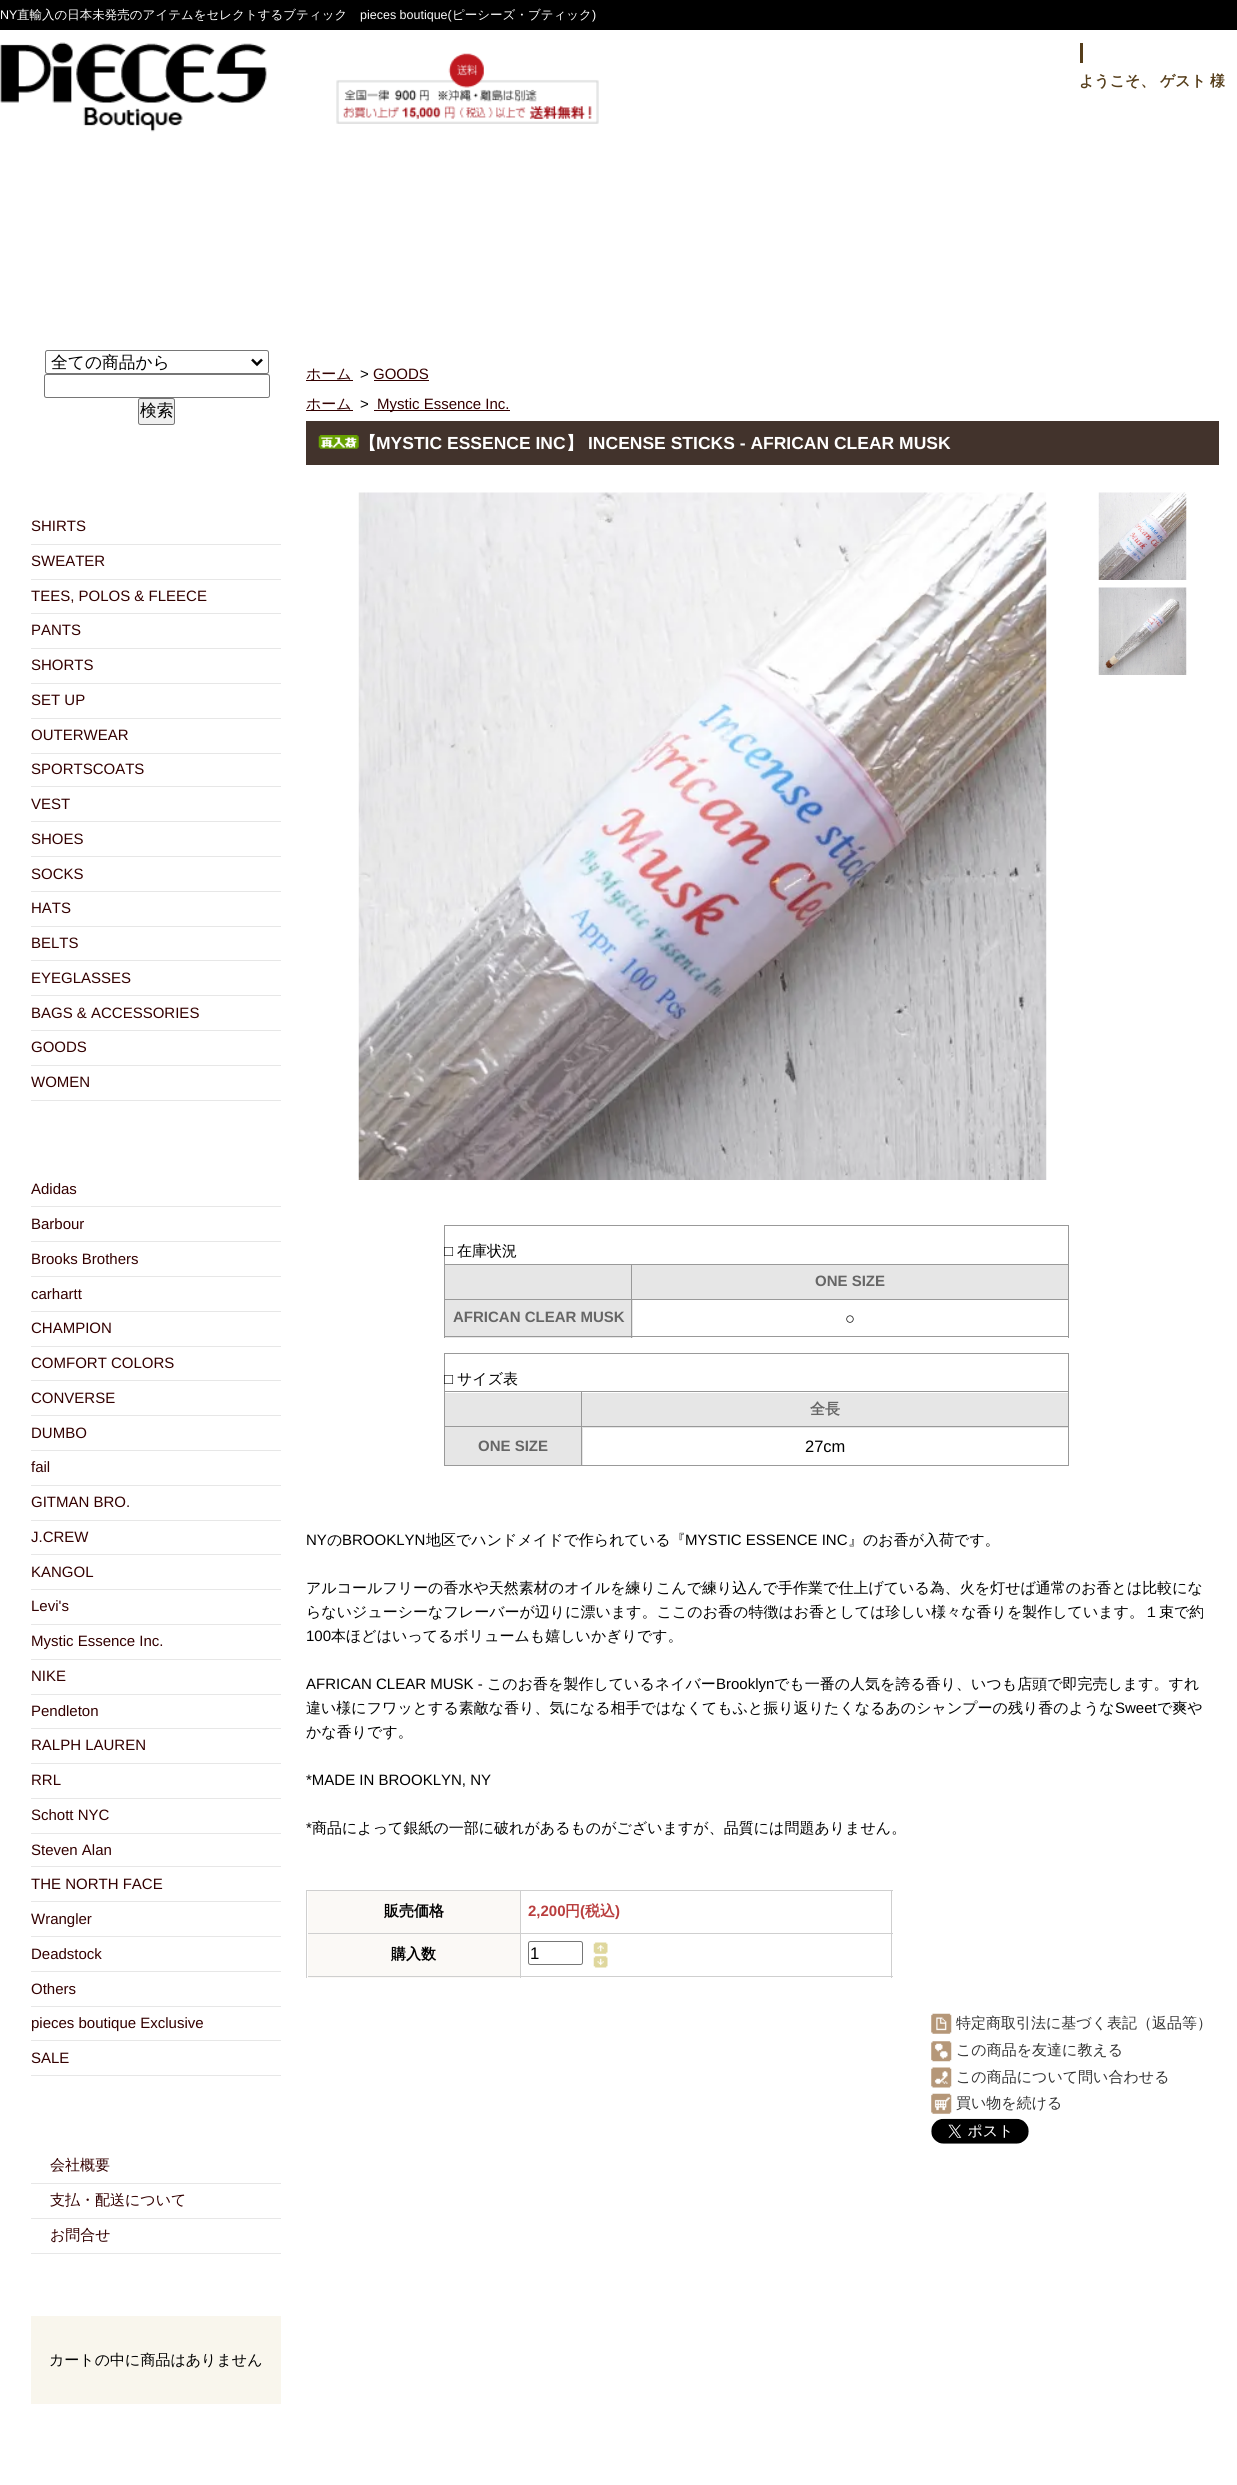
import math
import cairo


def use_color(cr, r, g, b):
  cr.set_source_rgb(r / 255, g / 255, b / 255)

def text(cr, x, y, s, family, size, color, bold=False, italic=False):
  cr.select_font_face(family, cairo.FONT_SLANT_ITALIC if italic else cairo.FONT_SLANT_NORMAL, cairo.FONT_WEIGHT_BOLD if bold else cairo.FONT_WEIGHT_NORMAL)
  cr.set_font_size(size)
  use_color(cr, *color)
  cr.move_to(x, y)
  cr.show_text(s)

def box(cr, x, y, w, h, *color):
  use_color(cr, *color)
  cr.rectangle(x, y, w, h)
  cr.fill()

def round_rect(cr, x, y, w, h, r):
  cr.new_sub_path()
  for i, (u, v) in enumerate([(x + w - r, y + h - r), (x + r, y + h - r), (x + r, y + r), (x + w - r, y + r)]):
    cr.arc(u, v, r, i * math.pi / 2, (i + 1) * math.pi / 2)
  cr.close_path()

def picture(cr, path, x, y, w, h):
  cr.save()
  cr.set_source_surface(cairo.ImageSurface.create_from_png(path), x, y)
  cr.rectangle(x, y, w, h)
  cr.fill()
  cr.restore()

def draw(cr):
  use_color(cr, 255, 255, 255)
  cr.paint()
  box(cr, 0, 0, 1237, 30, 0, 0, 0)
  picture(cr, "img_01.png", 0, 42, 599, 90)
  box(cr, 1080, 43, 3, 20, 86, 62, 27)
  round_rect(cr, 45.5, 350.5, 223, 23, 2)
  use_color(cr, 118, 118, 118)
  cr.set_line_width(1)
  cr.stroke()
  cr.new_path()
  cr.move_to(252, 359.5)
  cr.line_to(257, 364.5)
  cr.line_to(262, 359.5)
  use_color(cr, 0, 0, 0)
  cr.set_line_width(2.5)
  cr.stroke()
  round_rect(cr, 44.5, 374.5, 225, 23, 2)
  use_color(cr, 118, 118, 118)
  cr.set_line_width(1)
  cr.stroke()
  use_color(cr, 239, 239, 239)
  round_rect(cr, 138.5, 398.5, 36, 26, 2)
  cr.fill_preserve()
  use_color(cr, 118, 118, 118)
  cr.stroke()
  box(cr, 31, 544, 250, 1, 231, 231, 231)
  box(cr, 31, 579, 250, 1, 231, 231, 231)
  box(cr, 31, 613, 250, 1, 231, 231, 231)
  box(cr, 31, 648, 250, 1, 231, 231, 231)
  box(cr, 31, 683, 250, 1, 231, 231, 231)
  box(cr, 31, 718, 250, 1, 231, 231, 231)
  box(cr, 31, 753, 250, 1, 231, 231, 231)
  box(cr, 31, 786, 250, 1, 231, 231, 231)
  box(cr, 31, 821, 250, 1, 231, 231, 231)
  box(cr, 31, 856, 250, 1, 231, 231, 231)
  box(cr, 31, 891, 250, 1, 231, 231, 231)
  box(cr, 31, 926, 250, 1, 231, 231, 231)
  box(cr, 31, 960, 250, 1, 231, 231, 231)
  box(cr, 31, 995, 250, 1, 231, 231, 231)
  box(cr, 31, 1030, 250, 1, 231, 231, 231)
  box(cr, 31, 1065, 250, 1, 231, 231, 231)
  box(cr, 31, 1100, 250, 1, 231, 231, 231)
  box(cr, 31, 1206, 250, 1, 231, 231, 231)
  box(cr, 31, 1241, 250, 1, 231, 231, 231)
  box(cr, 31, 1276, 250, 1, 231, 231, 231)
  box(cr, 31, 1311, 250, 1, 231, 231, 231)
  box(cr, 31, 1346, 250, 1, 231, 231, 231)
  box(cr, 31, 1380, 250, 1, 231, 231, 231)
  box(cr, 31, 1415, 250, 1, 231, 231, 231)
  box(cr, 31, 1450, 250, 1, 231, 231, 231)
  box(cr, 31, 1485, 250, 1, 231, 231, 231)
  box(cr, 31, 1520, 250, 1, 231, 231, 231)
  box(cr, 31, 1554, 250, 1, 231, 231, 231)
  box(cr, 31, 1589, 250, 1, 231, 231, 231)
  box(cr, 31, 1624, 250, 1, 231, 231, 231)
  box(cr, 31, 1659, 250, 1, 231, 231, 231)
  box(cr, 31, 1694, 250, 1, 231, 231, 231)
  box(cr, 31, 1728, 250, 1, 231, 231, 231)
  box(cr, 31, 1763, 250, 1, 231, 231, 231)
  box(cr, 31, 1798, 250, 1, 231, 231, 231)
  box(cr, 31, 1833, 250, 1, 231, 231, 231)
  box(cr, 31, 1866, 250, 1, 231, 231, 231)
  box(cr, 31, 1901, 250, 1, 231, 231, 231)
  box(cr, 31, 1936, 250, 1, 231, 231, 231)
  box(cr, 31, 1971, 250, 1, 231, 231, 231)
  box(cr, 31, 2006, 250, 1, 231, 231, 231)
  box(cr, 31, 2040, 250, 1, 231, 231, 231)
  box(cr, 31, 2075, 250, 1, 231, 231, 231)
  box(cr, 31, 2183, 250, 1, 231, 231, 231)
  box(cr, 31, 2218, 250, 1, 231, 231, 231)
  box(cr, 31, 2253, 250, 1, 231, 231, 231)
  box(cr, 31, 2316, 250, 88, 249, 246, 237)
  box(cr, 306, 380, 47, 1, 51, 0, 0)
  box(cr, 374, 380, 55, 1, 51, 0, 0)
  box(cr, 306, 410, 47, 1, 51, 0, 0)
  box(cr, 374, 410, 136, 1, 51, 0, 0)
  box(cr, 306, 421, 913, 44, 66, 51, 44)
  picture(cr, "img_02.png", 318, 435, 41, 14)
  picture(cr, "img_03.png", 358, 492, 689, 688)
  picture(cr, "img_04.png", 1098, 492, 89, 88)
  picture(cr, "img_05.png", 1098, 587, 89, 88)
  box(cr, 444, 1225, 625, 1, 153, 153, 153)
  box(cr, 1068, 1225, 1, 113, 153, 153, 153)
  box(cr, 445, 1300, 188, 38, 230, 230, 230)
  box(cr, 444, 1336, 625, 1, 153, 153, 153)
  box(cr, 444, 1225, 1, 113, 153, 153, 153)
  box(cr, 445, 1265, 623, 34, 230, 230, 230)
  box(cr, 631, 1264, 438, 1, 153, 153, 153)
  box(cr, 631, 1299, 438, 1, 153, 153, 153)
  box(cr, 631, 1299, 1, 39, 153, 153, 153)
  box(cr, 444, 1299, 189, 1, 153, 153, 153)
  box(cr, 631, 1264, 1, 36, 153, 153, 153)
  box(cr, 444, 1264, 189, 1, 153, 153, 153)
  box(cr, 444, 1353, 625, 1, 153, 153, 153)
  box(cr, 1068, 1353, 1, 113, 153, 153, 153)
  box(cr, 444, 1465, 625, 1, 153, 153, 153)
  box(cr, 444, 1353, 1, 113, 153, 153, 153)
  box(cr, 445, 1393, 623, 35, 230, 230, 230)
  box(cr, 581, 1391, 488, 1, 153, 153, 153)
  box(cr, 581, 1426, 488, 1, 153, 153, 153)
  box(cr, 445, 1428, 138, 37, 230, 230, 230)
  box(cr, 581, 1426, 1, 40, 153, 153, 153)
  box(cr, 444, 1426, 139, 1, 153, 153, 153)
  box(cr, 581, 1391, 1, 37, 153, 153, 153)
  box(cr, 444, 1391, 139, 1, 153, 153, 153)
  box(cr, 306, 1890, 587, 1, 207, 207, 207)
  box(cr, 306, 1890, 1, 88, 207, 207, 207)
  box(cr, 308, 1891, 212, 42, 251, 249, 246)
  box(cr, 520, 1891, 1, 87, 207, 207, 207)
  box(cr, 308, 1933, 213, 1, 207, 207, 207)
  box(cr, 891, 1891, 1, 87, 207, 207, 207)
  box(cr, 521, 1933, 372, 1, 207, 207, 207)
  box(cr, 308, 1934, 212, 44, 251, 249, 246)
  box(cr, 308, 1976, 585, 1, 207, 207, 207)
  round_rect(cr, 528.5, 1941.5, 54, 23, 2)
  use_color(cr, 118, 118, 118)
  cr.stroke()
  picture(cr, "img_06.png", 593, 1942, 15, 12)
  picture(cr, "img_07.png", 593, 1956, 15, 12)
  picture(cr, "img_08.png", 931, 2013, 21, 21)
  picture(cr, "img_09.png", 931, 2041, 21, 21)
  picture(cr, "img_10.png", 931, 2067, 21, 21)
  picture(cr, "img_11.png", 931, 2093, 21, 21)
  picture(cr, "img_12.png", 931, 2118, 98, 26)
  text(cr, 0, 19, "NY", "Liberation Sans", 12.5, (255, 255, 255))
  text(cr, 17, 19, "直輸入の日本未発売のアイテムをセレクトするブティック", "WenQuanYi Zen Hei Medium", 12.5, (255, 255, 255))
  text(cr, 360, 19, "pieces boutique(", "Liberation Sans", 12.5, (255, 255, 255))
  text(cr, 452, 19, "ピーシーズ・ブティック", "WenQuanYi Zen Hei Medium", 12.5, (255, 255, 255))
  text(cr, 592, 19, ")", "Liberation Sans", 12.5, (255, 255, 255))
  text(cr, 1079, 86, "ようこそ、", "WenQuanYi Zen Hei", 15, (86, 62, 27), bold=True)
  text(cr, 1160, 86, "ゲスト", "WenQuanYi Zen Hei", 15, (86, 62, 27), bold=True)
  text(cr, 1210, 86, "様", "WenQuanYi Zen Hei", 15, (86, 62, 27), bold=True)
  text(cr, 51, 368, "全ての商品から", "WenQuanYi Zen Hei Medium", 16.75, (0, 0, 0))
  text(cr, 140, 416, "検索", "WenQuanYi Zen Hei Medium", 16.75, (0, 0, 0))
  text(cr, 31, 531, "SHIRTS", "Liberation Sans", 15, (51, 0, 0))
  text(cr, 31, 566, "SWEATER", "Liberation Sans", 15, (51, 0, 0))
  text(cr, 31, 601, "TEES, POLOS & FLEECE", "Liberation Sans", 15, (51, 0, 0))
  text(cr, 31, 635, "PANTS", "Liberation Sans", 15, (51, 0, 0))
  text(cr, 31, 670, "SHORTS", "Liberation Sans", 15, (51, 0, 0))
  text(cr, 31, 705, "SET UP", "Liberation Sans", 15, (51, 0, 0))
  text(cr, 31, 740, "OUTERWEAR", "Liberation Sans", 15, (51, 0, 0))
  text(cr, 31, 774, "SPORTSCOATS", "Liberation Sans", 15, (51, 0, 0))
  text(cr, 31, 809, "VEST", "Liberation Sans", 15, (51, 0, 0))
  text(cr, 31, 844, "SHOES", "Liberation Sans", 15, (51, 0, 0))
  text(cr, 31, 879, "SOCKS", "Liberation Sans", 15, (51, 0, 0))
  text(cr, 31, 913, "HATS", "Liberation Sans", 15, (51, 0, 0))
  text(cr, 31, 948, "BELTS", "Liberation Sans", 15, (51, 0, 0))
  text(cr, 31, 983, "EYEGLASSES", "Liberation Sans", 15, (51, 0, 0))
  text(cr, 31, 1018, "BAGS & ACCESSORIES", "Liberation Sans", 15, (51, 0, 0))
  text(cr, 31, 1052, "GOODS", "Liberation Sans", 15, (51, 0, 0))
  text(cr, 31, 1087, "WOMEN", "Liberation Sans", 15, (51, 0, 0))
  text(cr, 31, 1194, "Adidas", "Liberation Sans", 15, (51, 0, 0))
  text(cr, 31, 1229, "Barbour", "Liberation Sans", 15, (51, 0, 0))
  text(cr, 31, 1264, "Brooks Brothers", "Liberation Sans", 15, (51, 0, 0))
  text(cr, 31, 1299, "carhartt", "Liberation Sans", 15, (51, 0, 0))
  text(cr, 31, 1333, "CHAMPION", "Liberation Sans", 15, (51, 0, 0))
  text(cr, 31, 1368, "COMFORT COLORS", "Liberation Sans", 15, (51, 0, 0))
  text(cr, 31, 1403, "CONVERSE", "Liberation Sans", 15, (51, 0, 0))
  text(cr, 31, 1438, "DUMBO", "Liberation Sans", 15, (51, 0, 0))
  text(cr, 31, 1472, "fail", "Liberation Sans", 15, (51, 0, 0))
  text(cr, 31, 1507, "GITMAN BRO.", "Liberation Sans", 15, (51, 0, 0))
  text(cr, 31, 1542, "J.CREW", "Liberation Sans", 15, (51, 0, 0))
  text(cr, 31, 1577, "KANGOL", "Liberation Sans", 15, (51, 0, 0))
  text(cr, 31, 1611, "Levi's", "Liberation Sans", 15, (51, 0, 0))
  text(cr, 31, 1646, "Mystic Essence Inc.", "Liberation Sans", 15, (51, 0, 0))
  text(cr, 31, 1681, "NIKE", "Liberation Sans", 15, (51, 0, 0))
  text(cr, 31, 1716, "Pendleton", "Liberation Sans", 15, (51, 0, 0))
  text(cr, 31, 1750, "RALPH LAUREN", "Liberation Sans", 15, (51, 0, 0))
  text(cr, 31, 1785, "RRL", "Liberation Sans", 15, (51, 0, 0))
  text(cr, 31, 1820, "Schott NYC", "Liberation Sans", 15, (51, 0, 0))
  text(cr, 31, 1855, "Steven Alan", "Liberation Sans", 15, (51, 0, 0))
  text(cr, 31, 1889, "THE NORTH FACE", "Liberation Sans", 15, (51, 0, 0))
  text(cr, 31, 1924, "Wrangler", "Liberation Sans", 15, (51, 0, 0))
  text(cr, 31, 1959, "Deadstock", "Liberation Sans", 15, (51, 0, 0))
  text(cr, 31, 1994, "Others", "Liberation Sans", 15, (51, 0, 0))
  text(cr, 31, 2028, "pieces boutique Exclusive", "Liberation Sans", 15, (51, 0, 0))
  text(cr, 31, 2063, "SALE", "Liberation Sans", 15, (51, 0, 0))
  text(cr, 50, 2170, "会社概要", "WenQuanYi Zen Hei Medium", 15, (51, 0, 0))
  text(cr, 50, 2205, "支払・配送について", "WenQuanYi Zen Hei Medium", 15, (51, 0, 0))
  text(cr, 50, 2240, "お問合せ", "WenQuanYi Zen Hei Medium", 15, (51, 0, 0))
  text(cr, 49, 2365, "カートの中に商品はありません", "WenQuanYi Zen Hei Medium", 15, (0, 0, 0))
  text(cr, 306, 379, "ホーム", "WenQuanYi Zen Hei Medium", 15, (51, 0, 0))
  text(cr, 360, 379, ">", "Liberation Sans", 15, (0, 0, 0))
  text(cr, 373, 379, "GOODS", "Liberation Sans", 15, (51, 0, 0))
  text(cr, 306, 409, "ホーム", "WenQuanYi Zen Hei Medium", 15, (51, 0, 0))
  text(cr, 360, 409, ">", "Liberation Sans", 15, (0, 0, 0))
  text(cr, 377, 409, "Mystic Essence Inc.", "Liberation Sans", 15, (51, 0, 0))
  text(cr, 359, 449, "【", "WenQuanYi Zen Hei", 17.5, (255, 255, 255), bold=True)
  text(cr, 376, 449, "MYSTIC ESSENCE INC", "Liberation Sans", 17.5, (255, 255, 255), bold=True)
  text(cr, 566, 449, "】", "WenQuanYi Zen Hei", 17.5, (255, 255, 255), bold=True)
  text(cr, 588, 449, "INCENSE STICKS - AFRICAN CLEAR MUSK", "Liberation Sans", 17.5, (255, 255, 255), bold=True)
  text(cr, 444, 1256, "□", "Liberation Sans", 15, (0, 0, 0))
  text(cr, 457, 1256, "在庫状況", "WenQuanYi Zen Hei Medium", 15, (0, 0, 0))
  text(cr, 815, 1286, "ONE SIZE", "Liberation Sans", 15, (102, 102, 102), bold=True)
  text(cr, 453, 1322, "AFRICAN CLEAR MUSK", "Liberation Sans", 15, (102, 102, 102), bold=True)
  text(cr, 845, 1324, "○", "Liberation Sans", 16.5, (0, 0, 0))
  text(cr, 444, 1384, "□", "Liberation Sans", 15, (0, 0, 0))
  text(cr, 457, 1384, "サイズ表", "WenQuanYi Zen Hei Medium", 15, (0, 0, 0))
  text(cr, 810, 1414, "全長", "WenQuanYi Zen Hei", 15, (102, 102, 102), bold=True)
  text(cr, 478, 1451, "ONE SIZE", "Liberation Sans", 15, (102, 102, 102), bold=True)
  text(cr, 805, 1452, "27cm", "Liberation Sans", 16.5, (0, 0, 0))
  text(cr, 306, 1545, "NY", "Liberation Sans", 15, (0, 0, 0))
  text(cr, 327, 1545, "の", "WenQuanYi Zen Hei Medium", 15, (0, 0, 0))
  text(cr, 342, 1545, "BROOKLYN", "Liberation Sans", 15, (0, 0, 0))
  text(cr, 426, 1545, "地区でハンドメイドで作られている『", "WenQuanYi Zen Hei Medium", 15, (0, 0, 0))
  text(cr, 685, 1545, "MYSTIC ESSENCE INC", "Liberation Sans", 15, (0, 0, 0))
  text(cr, 848, 1545, "』のお香が入荷です。", "WenQuanYi Zen Hei Medium", 15, (0, 0, 0))
  text(cr, 306, 1593, "アルコールフリーの香水や天然素材のオイルを練りこんで練り込んで手作業で仕上げている為、火を灯せば通常のお香とは比較にな", "WenQuanYi Zen Hei Medium", 15, (0, 0, 0))
  text(cr, 306, 1617, "らないジューシーなフレーバーが辺りに漂います。ここのお香の特徴はお香としては珍しい様々な香りを製作しています。１束で約", "WenQuanYi Zen Hei Medium", 15, (0, 0, 0))
  text(cr, 306, 1641, "100", "Liberation Sans", 15, (0, 0, 0))
  text(cr, 331, 1641, "本ほどはいってるボリュームも嬉しいかぎりです。", "WenQuanYi Zen Hei Medium", 15, (0, 0, 0))
  text(cr, 306, 1689, "AFRICAN CLEAR MUSK -", "Liberation Sans", 15, (0, 0, 0))
  text(cr, 487, 1689, "このお香を製作しているネイバー", "WenQuanYi Zen Hei Medium", 15, (0, 0, 0))
  text(cr, 716, 1689, "Brooklyn", "Liberation Sans", 15, (0, 0, 0))
  text(cr, 774, 1689, "でも一番の人気を誇る香り、いつも店頭で即完売します。すれ", "WenQuanYi Zen Hei Medium", 15, (0, 0, 0))
  text(cr, 306, 1713, "違い様にフワッとする素敵な香り、気になる相手ではなくてもふと振り返りたくなるあのシャンプーの残り香のような", "WenQuanYi Zen Hei Medium", 15, (0, 0, 0))
  text(cr, 1115, 1713, "Sweet", "Liberation Sans", 15, (0, 0, 0))
  text(cr, 1157, 1713, "で爽や", "WenQuanYi Zen Hei Medium", 15, (0, 0, 0))
  text(cr, 306, 1737, "かな香りです。", "WenQuanYi Zen Hei Medium", 15, (0, 0, 0))
  text(cr, 306, 1785, "*MADE IN BROOKLYN, NY", "Liberation Sans", 15, (0, 0, 0))
  text(cr, 306, 1833, "*", "Liberation Sans", 15, (0, 0, 0))
  text(cr, 312, 1833, "商品によって銀紙の一部に破れがあるものがございますが、品質には問題ありません。", "WenQuanYi Zen Hei Medium", 15, (0, 0, 0))
  text(cr, 384, 1916, "販売価格", "WenQuanYi Zen Hei", 15, (0, 0, 0), bold=True)
  text(cr, 528, 1916, "2,200", "Liberation Sans", 15, (185, 62, 62), bold=True)
  text(cr, 565, 1916, "円", "WenQuanYi Zen Hei", 15, (185, 62, 62), bold=True)
  text(cr, 580, 1916, "(", "Liberation Sans", 15, (185, 62, 62), bold=True)
  text(cr, 585, 1916, "税込", "WenQuanYi Zen Hei", 15, (185, 62, 62), bold=True)
  text(cr, 615, 1916, ")", "Liberation Sans", 15, (185, 62, 62), bold=True)
  text(cr, 391, 1959, "購入数", "WenQuanYi Zen Hei", 15, (0, 0, 0), bold=True)
  text(cr, 530, 1959, "1", "Liberation Sans", 16.75, (0, 0, 0))
  text(cr, 956, 2028, "特定商取引法に基づく表記（返品等）", "WenQuanYi Zen Hei Medium", 15, (51, 51, 51))
  text(cr, 956, 2055, "この商品を友達に教える", "WenQuanYi Zen Hei Medium", 15, (51, 51, 51))
  text(cr, 956, 2082, "この商品について問い合わせる", "WenQuanYi Zen Hei Medium", 15, (51, 51, 51))
  text(cr, 956, 2108, "買い物を続ける", "WenQuanYi Zen Hei Medium", 15, (51, 51, 51))


surface = cairo.ImageSurface(cairo.FORMAT_RGB24, 1237, 2485)
cr = cairo.Context(surface)
options = cairo.FontOptions()
options.set_hint_metrics(cairo.HINT_METRICS_OFF)
options.set_hint_style(cairo.HINT_STYLE_NONE)
cr.set_font_options(options)
cr.set_miter_limit(4)
draw(cr)
surface.write_to_png("out.png")
